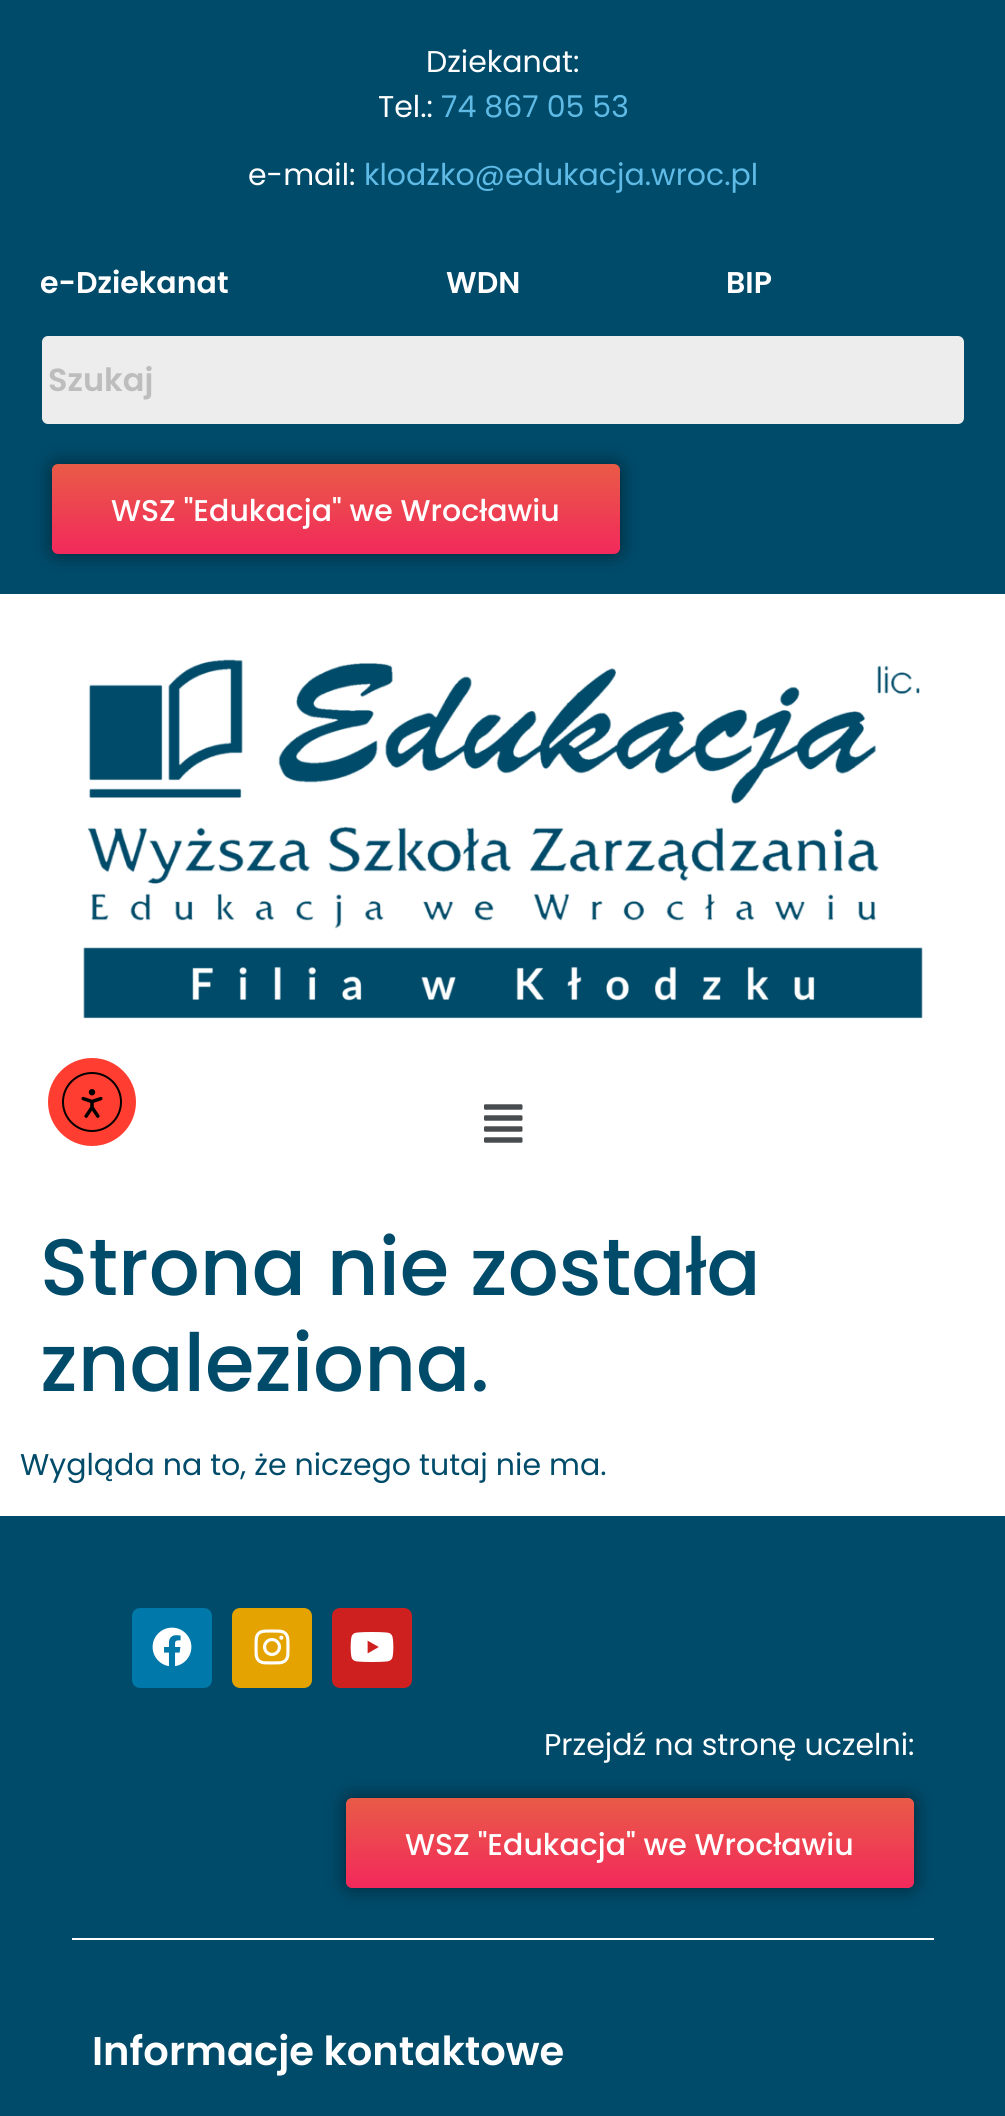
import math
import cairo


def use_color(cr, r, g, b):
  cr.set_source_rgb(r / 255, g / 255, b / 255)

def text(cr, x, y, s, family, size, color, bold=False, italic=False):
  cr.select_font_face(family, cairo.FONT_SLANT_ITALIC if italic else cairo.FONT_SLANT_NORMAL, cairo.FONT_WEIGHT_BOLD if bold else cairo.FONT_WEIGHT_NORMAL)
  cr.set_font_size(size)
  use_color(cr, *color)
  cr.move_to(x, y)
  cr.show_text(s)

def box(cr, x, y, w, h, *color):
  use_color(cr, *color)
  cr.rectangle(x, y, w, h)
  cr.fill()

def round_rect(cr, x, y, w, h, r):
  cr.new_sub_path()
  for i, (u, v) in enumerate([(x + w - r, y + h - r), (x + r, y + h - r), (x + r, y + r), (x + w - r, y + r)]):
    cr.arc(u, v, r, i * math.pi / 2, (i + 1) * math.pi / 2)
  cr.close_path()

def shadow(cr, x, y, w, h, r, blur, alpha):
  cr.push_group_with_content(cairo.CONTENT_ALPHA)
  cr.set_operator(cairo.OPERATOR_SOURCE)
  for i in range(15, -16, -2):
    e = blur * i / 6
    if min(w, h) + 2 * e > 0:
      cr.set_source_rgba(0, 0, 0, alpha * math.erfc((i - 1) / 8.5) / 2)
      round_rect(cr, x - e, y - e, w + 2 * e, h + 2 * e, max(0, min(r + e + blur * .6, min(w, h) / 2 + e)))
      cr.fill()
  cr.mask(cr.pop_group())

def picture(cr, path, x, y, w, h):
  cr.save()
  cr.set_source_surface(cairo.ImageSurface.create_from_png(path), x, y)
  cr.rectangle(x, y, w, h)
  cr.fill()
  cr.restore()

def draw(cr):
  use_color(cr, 255, 255, 255)
  cr.paint()
  box(cr, 0, 0, 1005, 594, 0, 75, 106)
  use_color(cr, 237, 237, 237)
  round_rect(cr, 42, 336, 922, 88, 6)
  cr.fill()
  use_color(cr, 0, 0, 0)
  shadow(cr, 52, 464, 568, 90, 6, 10, 0.5)
  gradient = cairo.LinearGradient(336, 464, 336, 554)
  gradient.add_color_stop_rgba(0, 0.914, 0.357, 0.278, 1)
  gradient.add_color_stop_rgba(1, 0.949, 0.161, 0.357, 1)
  cr.set_source(gradient)
  round_rect(cr, 52, 464, 568, 90, 6)
  cr.fill()
  picture(cr, "img_01.png", 83, 659, 840, 360)
  picture(cr, "img_02.png", 484, 1104, 39, 39)
  box(cr, 0, 1516, 1005, 600, 0, 75, 106)
  use_color(cr, 0, 120, 170)
  round_rect(cr, 132, 1608, 80, 80, 8)
  cr.fill()
  picture(cr, "img_03.png", 152, 1627, 40, 40)
  use_color(cr, 228, 163, 0)
  round_rect(cr, 232, 1608, 80, 80, 8)
  cr.fill()
  picture(cr, "img_04.png", 254, 1629, 36, 36)
  use_color(cr, 205, 32, 31)
  round_rect(cr, 332, 1608, 80, 80, 8)
  cr.fill()
  picture(cr, "img_05.png", 350, 1632, 44, 30)
  use_color(cr, 0, 0, 0)
  shadow(cr, 346, 1798, 568, 90, 6, 10, 0.5)
  gradient = cairo.LinearGradient(630, 1798, 630, 1888)
  gradient.add_color_stop_rgba(0, 0.914, 0.357, 0.278, 1)
  gradient.add_color_stop_rgba(1, 0.949, 0.161, 0.357, 1)
  cr.set_source(gradient)
  round_rect(cr, 346, 1798, 568, 90, 6)
  cr.fill()
  box(cr, 72, 1938, 862, 2, 255, 255, 255)
  use_color(cr, 255, 62, 49)
  cr.arc(92, 1102, 44, 0, 2 * math.pi)
  cr.fill()
  cr.arc(92, 1102, 29, 0, 2 * math.pi)
  use_color(cr, 0, 0, 0)
  cr.stroke()
  picture(cr, "img_06.png", 81, 1089, 22, 29)
  text(cr, 426, 72, "Dziekanat:", "Poppins", 30, (255, 255, 255))
  text(cr, 378, 117, "Tel.:", "Poppins", 30, (255, 255, 255))
  text(cr, 441, 117, "74 867 05 53", "Poppins", 30, (95, 187, 230))
  text(cr, 248, 185, "e-mail:", "Poppins", 30, (255, 255, 255))
  text(cr, 364, 185, "klodzko@edukacja.wroc.pl", "Poppins", 30, (95, 187, 230))
  text(cr, 40, 293, "e-Dziekanat", "Poppins SemiBold", 30, (255, 255, 255))
  text(cr, 446, 293, "WDN", "Poppins SemiBold", 30, (255, 255, 255))
  text(cr, 726, 293, "BIP", "Poppins SemiBold", 30, (255, 255, 255))
  text(cr, 48, 391, "Szukaj", "Poppins SemiBold", 32, (189, 189, 189))
  text(cr, 111, 521, "WSZ \"Edukacja\" we Wrocławiu", "Poppins Medium", 30, (255, 255, 255))
  text(cr, 40, 1295, "Strona nie została", "Poppins Medium", 80, (0, 75, 106))
  text(cr, 40, 1391, "znaleziona.", "Poppins Medium", 80, (0, 75, 106))
  text(cr, 20, 1475, "Wygląda na to, że niczego tutaj nie ma.", "Poppins", 30, (0, 75, 106))
  text(cr, 544, 1755, "Przejdź na stronę uczelni:", "Poppins", 30, (255, 255, 255))
  text(cr, 405, 1855, "WSZ \"Edukacja\" we Wrocławiu", "Poppins Medium", 30, (255, 255, 255))
  text(cr, 92, 2065, "Informacje kontaktowe", "Poppins SemiBold", 40, (255, 255, 255))


surface = cairo.ImageSurface(cairo.FORMAT_RGB24, 1005, 2116)
cr = cairo.Context(surface)
options = cairo.FontOptions()
options.set_hint_metrics(cairo.HINT_METRICS_OFF)
options.set_hint_style(cairo.HINT_STYLE_NONE)
cr.set_font_options(options)
cr.set_miter_limit(4)
draw(cr)
surface.write_to_png("out.png")
